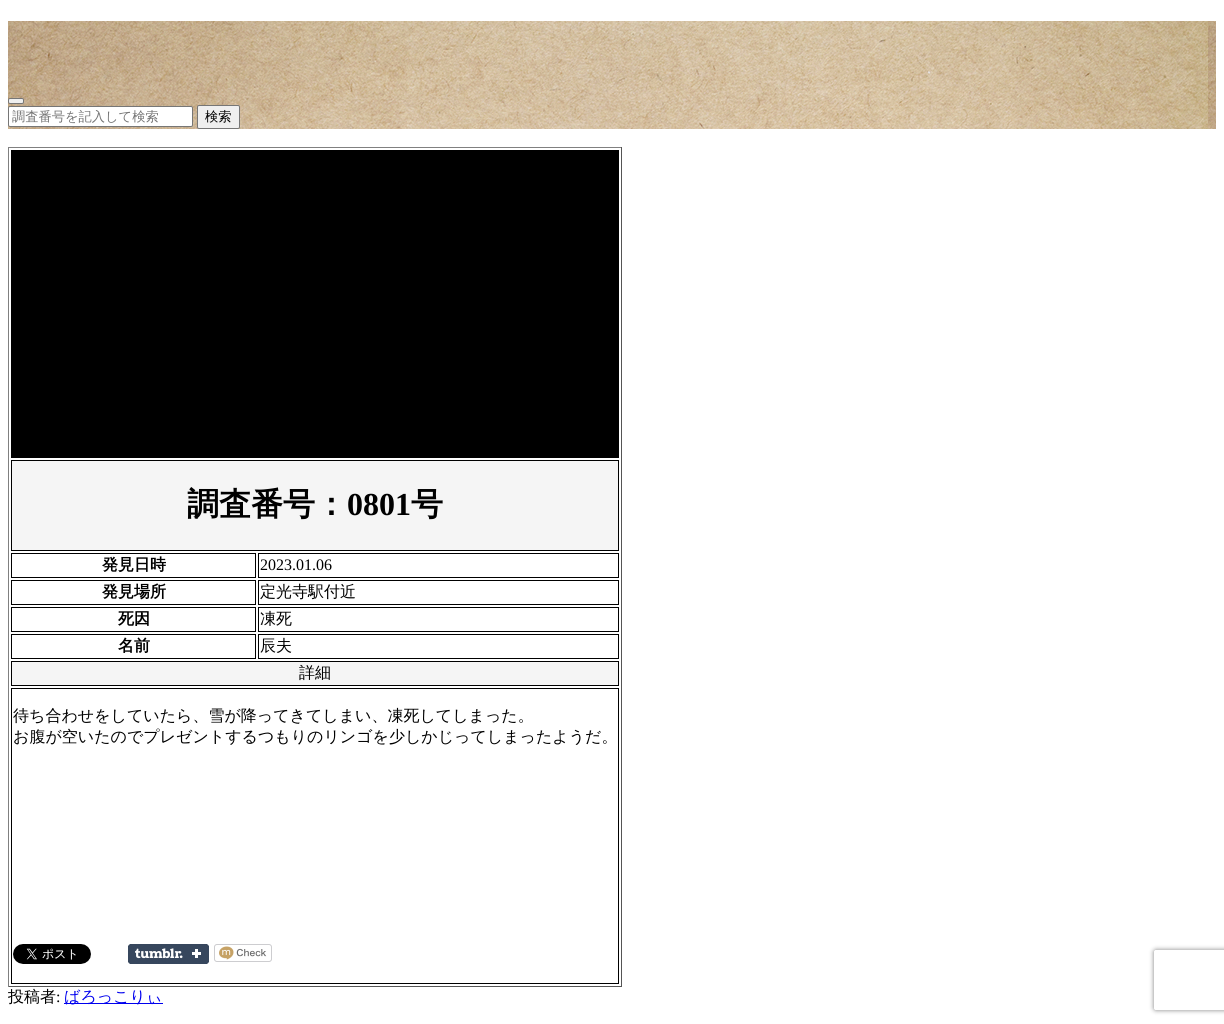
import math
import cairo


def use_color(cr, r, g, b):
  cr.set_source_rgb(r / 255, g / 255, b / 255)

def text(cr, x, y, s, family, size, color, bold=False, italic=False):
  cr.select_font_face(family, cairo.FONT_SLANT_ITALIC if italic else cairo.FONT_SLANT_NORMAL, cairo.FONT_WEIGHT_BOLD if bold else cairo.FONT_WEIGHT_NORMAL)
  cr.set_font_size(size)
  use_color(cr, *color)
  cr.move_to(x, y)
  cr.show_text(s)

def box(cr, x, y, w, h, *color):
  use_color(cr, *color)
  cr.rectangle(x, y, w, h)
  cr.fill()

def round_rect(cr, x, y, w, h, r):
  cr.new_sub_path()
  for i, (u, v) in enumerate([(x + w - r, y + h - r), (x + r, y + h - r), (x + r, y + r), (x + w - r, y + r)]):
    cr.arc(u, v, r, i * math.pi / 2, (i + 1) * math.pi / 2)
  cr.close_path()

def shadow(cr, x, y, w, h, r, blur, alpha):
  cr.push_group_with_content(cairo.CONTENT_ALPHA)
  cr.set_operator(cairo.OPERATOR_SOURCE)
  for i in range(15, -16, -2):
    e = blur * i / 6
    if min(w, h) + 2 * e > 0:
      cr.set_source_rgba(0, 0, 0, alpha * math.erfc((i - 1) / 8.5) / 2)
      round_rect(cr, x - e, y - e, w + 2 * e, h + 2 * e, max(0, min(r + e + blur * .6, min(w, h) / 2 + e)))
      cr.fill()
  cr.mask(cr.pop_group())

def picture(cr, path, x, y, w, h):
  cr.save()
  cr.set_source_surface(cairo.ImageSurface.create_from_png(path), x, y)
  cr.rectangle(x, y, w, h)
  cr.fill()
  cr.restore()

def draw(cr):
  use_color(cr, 255, 255, 255)
  cr.paint()
  picture(cr, "img_01.png", 8, 21, 1208, 108)
  use_color(cr, 239, 239, 239)
  round_rect(cr, 8.5, 98.5, 15, 5, 1.5)
  cr.fill_preserve()
  use_color(cr, 118, 118, 118)
  cr.set_line_width(1)
  cr.stroke()
  use_color(cr, 255, 255, 255)
  round_rect(cr, 8.5, 106.5, 184, 20, 1.5)
  cr.fill_preserve()
  use_color(cr, 118, 118, 118)
  cr.stroke()
  use_color(cr, 239, 239, 239)
  round_rect(cr, 197.5, 105.5, 42, 23, 1.5)
  cr.fill_preserve()
  use_color(cr, 118, 118, 118)
  cr.stroke()
  box(cr, 8, 147, 614, 1, 128, 128, 128)
  box(cr, 621, 147, 1, 840, 85, 85, 85)
  box(cr, 8, 986, 614, 1, 85, 85, 85)
  box(cr, 8, 147, 1, 840, 128, 128, 128)
  box(cr, 11, 150, 608, 308, 0, 0, 0)
  use_color(cr, 245, 245, 245)
  cr.rectangle(11.5, 460.5, 607, 90)
  cr.fill_preserve()
  use_color(cr, 0, 0, 0)
  cr.stroke()
  cr.rectangle(11.5, 553.5, 244, 24)
  cr.stroke()
  cr.rectangle(258.5, 553.5, 360, 24)
  cr.stroke()
  cr.rectangle(11.5, 580.5, 244, 24)
  cr.stroke()
  cr.rectangle(258.5, 580.5, 360, 24)
  cr.stroke()
  cr.rectangle(11.5, 607.5, 244, 24)
  cr.stroke()
  cr.rectangle(258.5, 607.5, 360, 24)
  cr.stroke()
  cr.rectangle(11.5, 634.5, 244, 24)
  cr.stroke()
  cr.rectangle(258.5, 634.5, 360, 24)
  cr.stroke()
  use_color(cr, 245, 245, 245)
  cr.rectangle(11.5, 661.5, 607, 24)
  cr.fill_preserve()
  use_color(cr, 0, 0, 0)
  cr.stroke()
  cr.rectangle(11.5, 688.5, 607, 295)
  cr.stroke()
  picture(cr, "img_02.png", 13, 944, 78, 20)
  picture(cr, "img_03.png", 128, 944, 81, 20)
  picture(cr, "img_04.png", 214, 944, 58, 18)
  box(cr, 64, 1003, 99, 1, 0, 0, 238)
  cr.save()
  cr.set_fill_rule(cairo.FILL_RULE_EVEN_ODD)
  cr.new_path()
  cr.move_to(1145, 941)
  cr.line_to(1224, 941)
  cr.line_to(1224, 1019)
  cr.line_to(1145, 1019)
  cr.close_path()
  cr.move_to(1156, 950)
  cr.line_to(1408, 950)
  cr.curve_to(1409, 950, 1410, 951, 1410, 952)
  cr.line_to(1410, 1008)
  cr.curve_to(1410, 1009, 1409, 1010, 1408, 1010)
  cr.line_to(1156, 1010)
  cr.curve_to(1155, 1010, 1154, 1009, 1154, 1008)
  cr.line_to(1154, 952)
  cr.curve_to(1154, 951, 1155, 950, 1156, 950)
  cr.close_path()
  cr.clip()
  use_color(cr, 128, 128, 128)
  shadow(cr, 1154, 950, 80, 60, 2, 2.5, 1)
  cr.restore()
  text(cr, 12, 121, "調査番号を記入して検索", "WenQuanYi Zen Hei Medium", 13.25, (117, 117, 117))
  text(cr, 205, 121, "検索", "WenQuanYi Zen Hei Medium", 13.25, (0, 0, 0))
  text(cr, 187, 515, "調査番号：", "WenQuanYi Zen Hei", 32, (0, 0, 0), bold=True)
  text(cr, 347, 515, "0801", "Liberation Serif", 32, (0, 0, 0), bold=True)
  text(cr, 411, 515, "号", "WenQuanYi Zen Hei", 32, (0, 0, 0), bold=True)
  text(cr, 102, 570, "発見日時", "WenQuanYi Zen Hei", 16, (0, 0, 0), bold=True)
  text(cr, 260, 570, "2023.01.06", "Liberation Serif", 16, (0, 0, 0))
  text(cr, 102, 597, "発見場所", "WenQuanYi Zen Hei", 16, (0, 0, 0), bold=True)
  text(cr, 260, 597, "定光寺駅付近", "WenQuanYi Zen Hei Medium", 16, (0, 0, 0))
  text(cr, 118, 624, "死因", "WenQuanYi Zen Hei", 16, (0, 0, 0), bold=True)
  text(cr, 260, 624, "凍死", "WenQuanYi Zen Hei Medium", 16, (0, 0, 0))
  text(cr, 118, 651, "名前", "WenQuanYi Zen Hei", 16, (0, 0, 0), bold=True)
  text(cr, 260, 651, "辰夫", "WenQuanYi Zen Hei Medium", 16, (0, 0, 0))
  text(cr, 299, 678, "詳細", "WenQuanYi Zen Hei Medium", 16, (0, 0, 0))
  text(cr, 13, 721, "待ち合わせをしていたら、雪が降ってきてしまい、凍死してしまった。", "WenQuanYi Zen Hei Medium", 16, (0, 0, 0))
  text(cr, 13, 742, "お腹が空いたのでプレゼントするつもりのリンゴを少しかじってしまったようだ。", "WenQuanYi Zen Hei Medium", 16, (0, 0, 0))
  text(cr, 8, 1002, "投稿者", "WenQuanYi Zen Hei Medium", 16, (0, 0, 0))
  text(cr, 56, 1002, ":", "Liberation Serif", 16, (0, 0, 0))
  text(cr, 64, 1002, "ばろっこりぃ", "WenQuanYi Zen Hei Medium", 16, (0, 0, 238))


surface = cairo.ImageSurface(cairo.FORMAT_RGB24, 1224, 1024)
cr = cairo.Context(surface)
options = cairo.FontOptions()
options.set_hint_metrics(cairo.HINT_METRICS_OFF)
options.set_hint_style(cairo.HINT_STYLE_NONE)
cr.set_font_options(options)
cr.set_miter_limit(4)
draw(cr)
surface.write_to_png("out.png")
